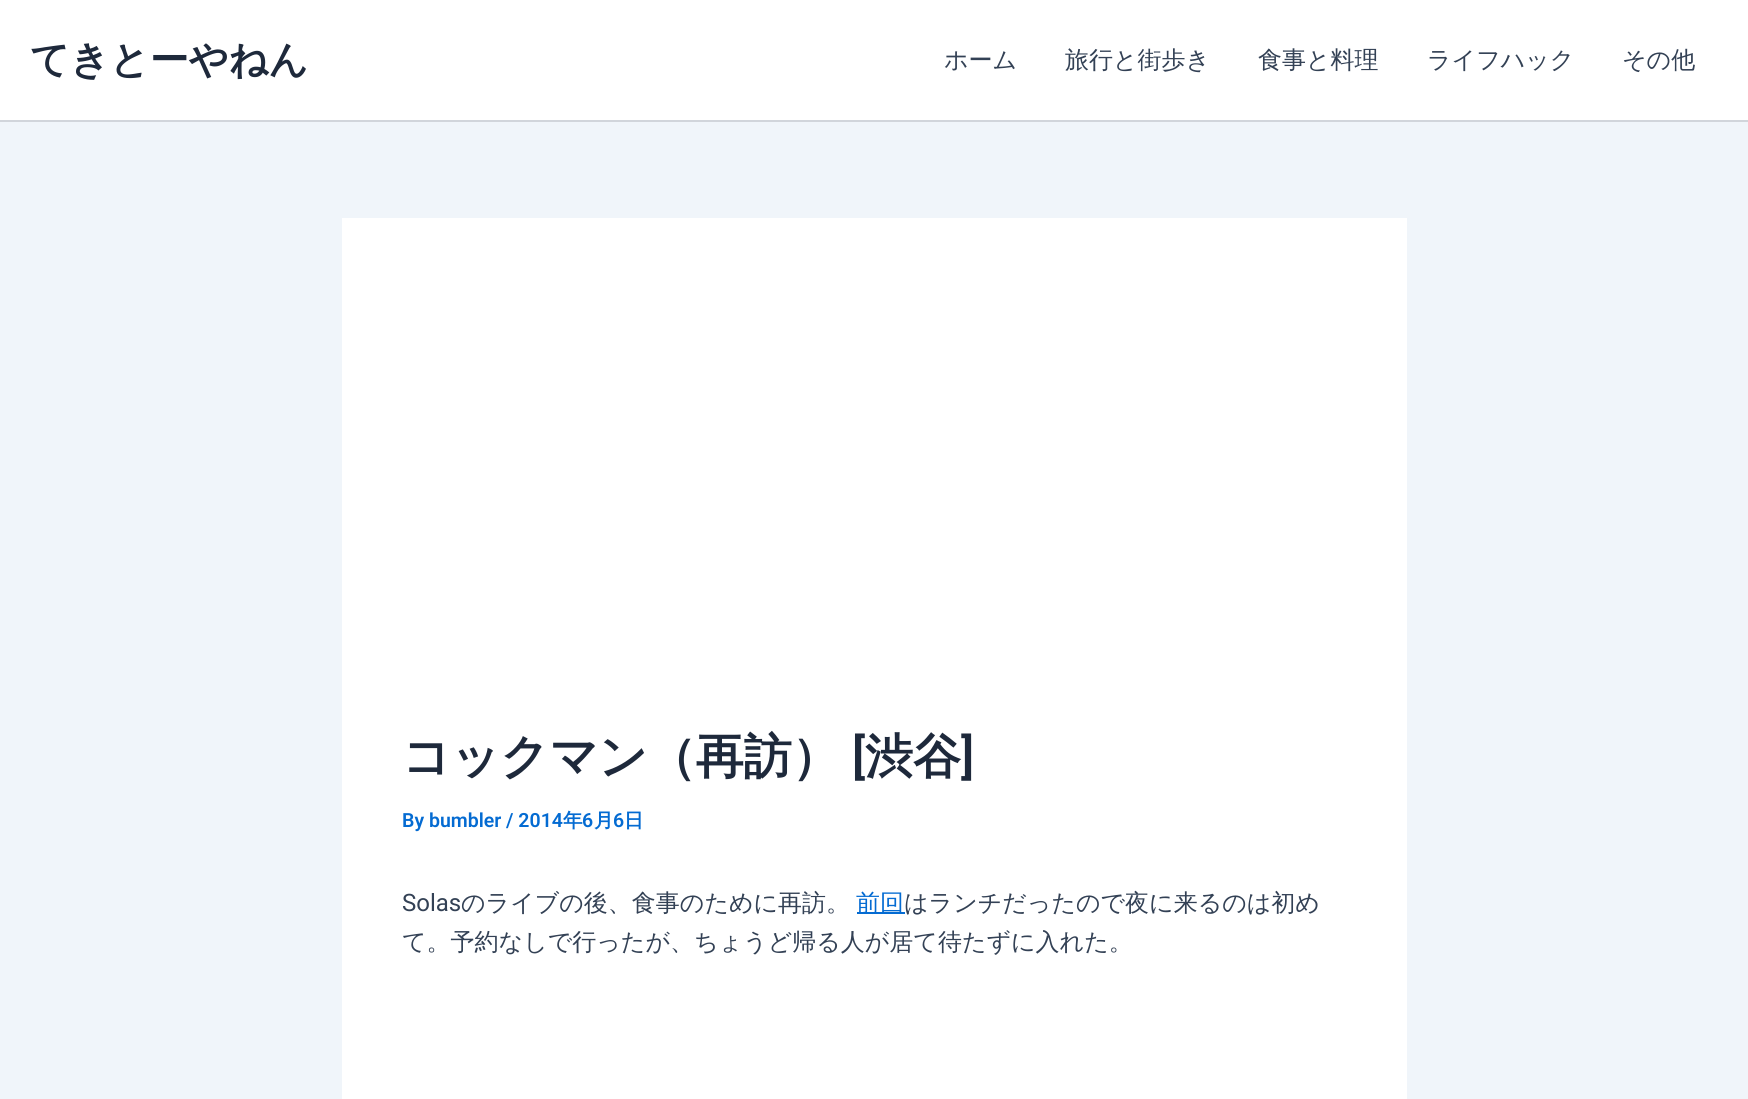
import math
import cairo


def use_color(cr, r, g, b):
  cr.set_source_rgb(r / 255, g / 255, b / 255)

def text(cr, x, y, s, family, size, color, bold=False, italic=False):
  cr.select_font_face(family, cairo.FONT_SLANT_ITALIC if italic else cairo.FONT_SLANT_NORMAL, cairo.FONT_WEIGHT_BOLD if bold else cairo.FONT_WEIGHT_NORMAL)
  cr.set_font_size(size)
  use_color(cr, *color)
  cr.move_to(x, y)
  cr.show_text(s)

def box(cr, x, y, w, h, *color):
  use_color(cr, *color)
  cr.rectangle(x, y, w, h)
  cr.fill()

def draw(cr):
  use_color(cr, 240, 245, 250)
  cr.paint()
  box(cr, 0, 0, 1748, 120, 255, 255, 255)
  box(cr, 0, 120, 1748, 2, 209, 213, 219)
  box(cr, 342, 218, 1065, 881, 255, 255, 255)
  box(cr, 857, 912, 48, 2, 4, 107, 210)
  text(cr, 30, 73, "てきとーやねん", "WenQuanYi Zen Hei", 39, (30, 41, 59), bold=True)
  text(cr, 944, 68, "ホーム", "WenQuanYi Zen Hei Medium", 24, (51, 65, 85))
  text(cr, 1065, 68, "旅行と街歩き", "WenQuanYi Zen Hei Medium", 24, (51, 65, 85))
  text(cr, 1258, 68, "食事と料理", "WenQuanYi Zen Hei Medium", 24, (51, 65, 85))
  text(cr, 1427, 68, "ライフハック", "WenQuanYi Zen Hei Medium", 24, (51, 65, 85))
  text(cr, 1622, 68, "その他", "WenQuanYi Zen Hei Medium", 24, (51, 65, 85))
  text(cr, 402, 773, "コックマン（再訪）", "WenQuanYi Zen Hei", 48, (30, 41, 59), bold=True)
  text(cr, 852, 773, "[", "Roboto SemiBold", 48, (30, 41, 59))
  text(cr, 865, 773, "渋谷", "WenQuanYi Zen Hei", 48, (30, 41, 59), bold=True)
  text(cr, 961, 773, "]", "Roboto SemiBold", 48, (30, 41, 59))
  text(cr, 402, 827, "By bumbler / 2014", "Roboto SemiBold", 19.5, (4, 107, 210))
  text(cr, 563, 827, "年", "WenQuanYi Zen Hei", 19.5, (4, 107, 210), bold=True)
  text(cr, 582, 827, "6", "Roboto SemiBold", 19.5, (4, 107, 210))
  text(cr, 594, 827, "月", "WenQuanYi Zen Hei", 19.5, (4, 107, 210), bold=True)
  text(cr, 613, 827, "6", "Roboto SemiBold", 19.5, (4, 107, 210))
  text(cr, 624, 827, "日", "WenQuanYi Zen Hei", 19.5, (4, 107, 210), bold=True)
  text(cr, 402, 911, "Solas", "Roboto", 24, (51, 65, 85))
  text(cr, 461, 911, "のライブの後、食事のために再訪。", "WenQuanYi Zen Hei Medium", 24, (51, 65, 85))
  text(cr, 856, 911, "前回", "WenQuanYi Zen Hei Medium", 24, (4, 107, 210))
  text(cr, 904, 911, "はランチだったので夜に来るのは初め", "WenQuanYi Zen Hei Medium", 24, (51, 65, 85))
  text(cr, 402, 950, "て。予約なしで行ったが、ちょうど帰る人が居て待たずに入れた。", "WenQuanYi Zen Hei Medium", 24, (51, 65, 85))


surface = cairo.ImageSurface(cairo.FORMAT_RGB24, 1748, 1099)
cr = cairo.Context(surface)
options = cairo.FontOptions()
options.set_hint_metrics(cairo.HINT_METRICS_OFF)
options.set_hint_style(cairo.HINT_STYLE_NONE)
cr.set_font_options(options)
cr.set_miter_limit(4)
draw(cr)
surface.write_to_png("out.png")
